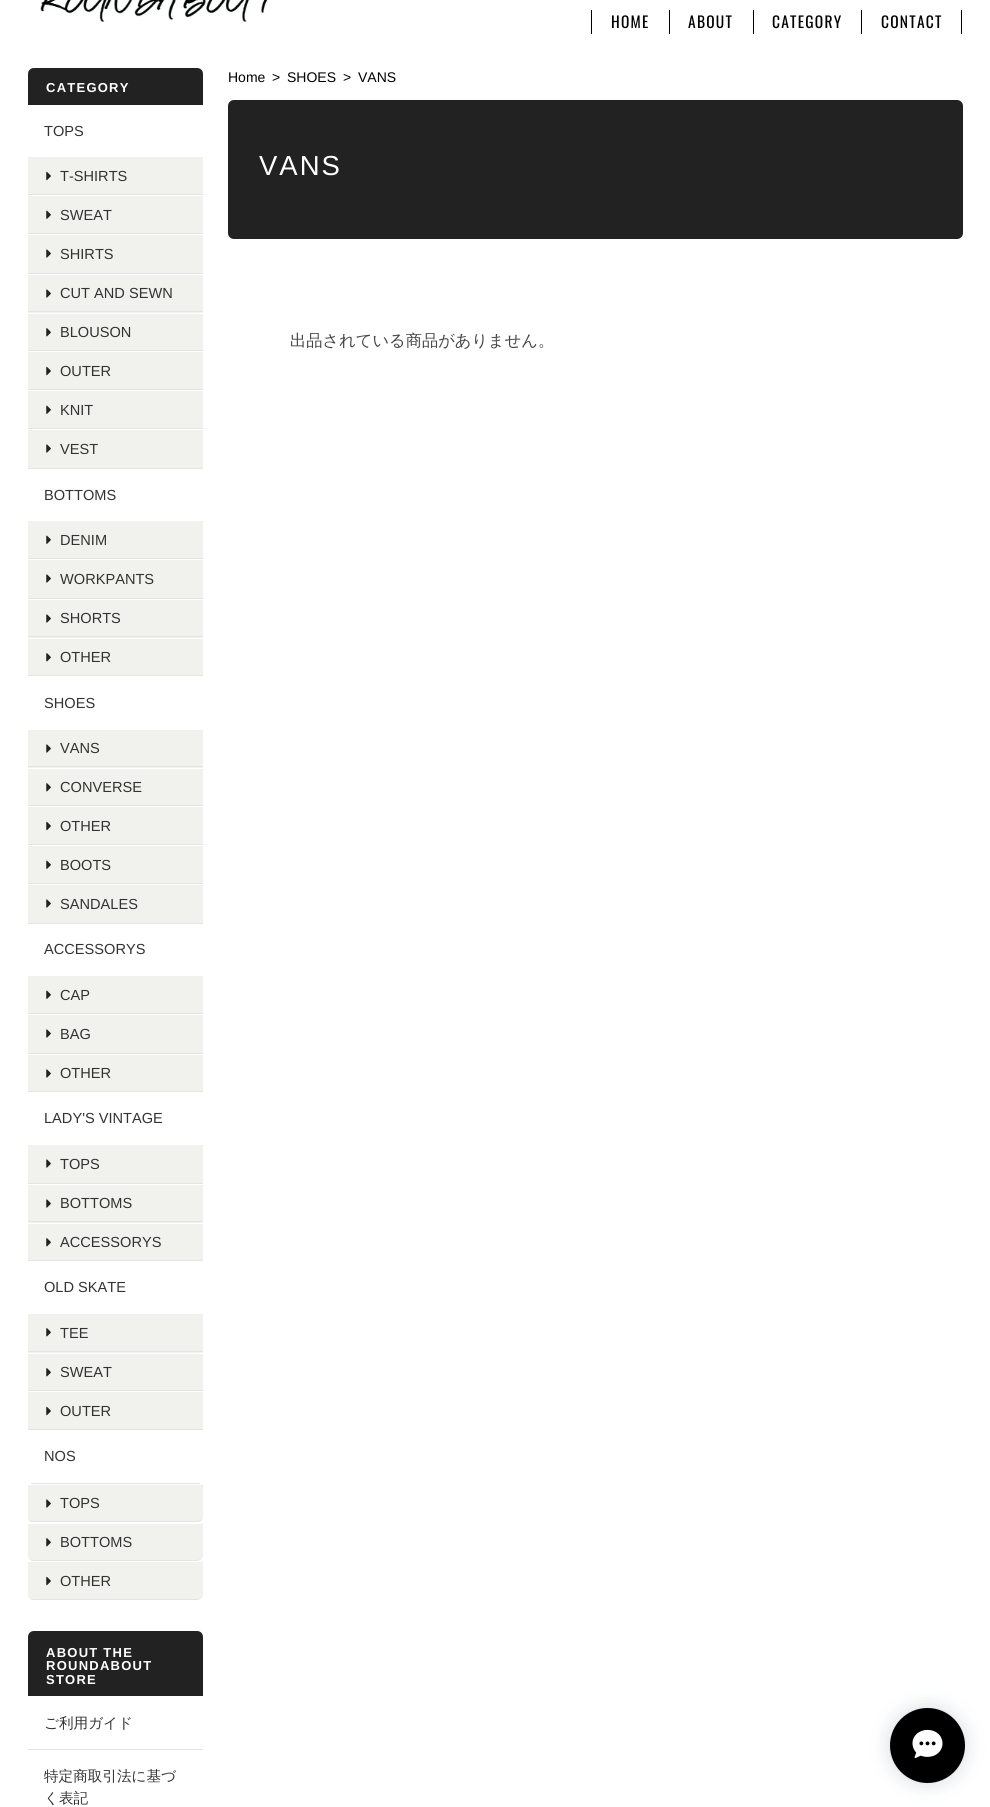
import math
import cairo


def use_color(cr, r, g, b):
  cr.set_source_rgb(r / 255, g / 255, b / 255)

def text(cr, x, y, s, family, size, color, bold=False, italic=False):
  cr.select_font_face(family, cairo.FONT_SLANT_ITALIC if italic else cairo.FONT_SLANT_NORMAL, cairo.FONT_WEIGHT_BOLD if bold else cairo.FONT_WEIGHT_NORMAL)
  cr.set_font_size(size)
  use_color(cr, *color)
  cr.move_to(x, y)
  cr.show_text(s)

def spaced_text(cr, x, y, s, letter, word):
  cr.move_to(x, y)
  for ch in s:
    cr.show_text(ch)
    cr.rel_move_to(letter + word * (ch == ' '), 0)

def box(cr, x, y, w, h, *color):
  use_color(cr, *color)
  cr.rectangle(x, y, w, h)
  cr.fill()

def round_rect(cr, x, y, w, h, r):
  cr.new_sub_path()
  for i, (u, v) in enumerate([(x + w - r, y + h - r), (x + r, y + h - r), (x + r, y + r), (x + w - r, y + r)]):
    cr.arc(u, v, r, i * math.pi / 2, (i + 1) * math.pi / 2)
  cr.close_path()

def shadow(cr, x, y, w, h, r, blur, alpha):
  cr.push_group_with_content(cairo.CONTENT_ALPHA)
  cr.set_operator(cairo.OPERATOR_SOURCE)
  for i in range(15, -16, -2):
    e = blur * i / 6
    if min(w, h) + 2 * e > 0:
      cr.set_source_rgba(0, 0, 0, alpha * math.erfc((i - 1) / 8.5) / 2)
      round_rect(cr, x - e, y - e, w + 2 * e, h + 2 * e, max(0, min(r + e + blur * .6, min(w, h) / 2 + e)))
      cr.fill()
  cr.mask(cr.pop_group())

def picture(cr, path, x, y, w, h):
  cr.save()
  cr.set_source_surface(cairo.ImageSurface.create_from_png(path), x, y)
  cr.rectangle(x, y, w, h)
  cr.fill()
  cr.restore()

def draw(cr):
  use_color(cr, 255, 255, 255)
  cr.paint()
  picture(cr, "img_01.png", 40, 0, 228, 22)
  box(cr, 591, 10, 1, 24, 0, 0, 0)
  box(cr, 669, 10, 1, 24, 0, 0, 0)
  box(cr, 753, 10, 1, 24, 0, 0, 0)
  box(cr, 961, 10, 1, 24, 0, 0, 0)
  box(cr, 861, 10, 1, 24, 0, 0, 0)
  use_color(cr, 34, 34, 34)
  cr.new_path()
  cr.move_to(34, 68)
  cr.line_to(197, 68)
  cr.curve_to(200.5, 68, 203, 70.5, 203, 74)
  cr.line_to(203, 105)
  cr.line_to(28, 105)
  cr.line_to(28, 74)
  cr.curve_to(28, 70.5, 30.5, 68, 34, 68)
  cr.close_path()
  cr.fill()
  box(cr, 28, 468, 175, 1, 228, 228, 228)
  box(cr, 28, 157, 175, 37, 241, 241, 238)
  box(cr, 28, 194, 175, 1, 228, 228, 228)
  picture(cr, "img_02.png", 46, 171, 5, 10)
  box(cr, 28, 196, 175, 37, 241, 241, 238)
  box(cr, 28, 233, 175, 1, 228, 228, 228)
  picture(cr, "img_03.png", 46, 210, 5, 9)
  box(cr, 28, 235, 175, 38, 241, 241, 238)
  box(cr, 28, 273, 175, 1, 228, 228, 228)
  picture(cr, "img_04.png", 46, 249, 5, 9)
  box(cr, 28, 275, 175, 38, 241, 241, 238)
  box(cr, 28, 311, 175, 1, 228, 228, 228)
  picture(cr, "img_04.png", 46, 289, 5, 9)
  box(cr, 28, 314, 175, 36, 241, 241, 238)
  box(cr, 28, 350, 175, 1, 228, 228, 228)
  picture(cr, "img_05.png", 46, 328, 5, 9)
  box(cr, 28, 352, 175, 37, 241, 241, 238)
  box(cr, 28, 389, 175, 1, 228, 228, 228)
  picture(cr, "img_02.png", 46, 366, 5, 10)
  box(cr, 28, 391, 175, 37, 241, 241, 238)
  box(cr, 28, 428, 175, 1, 228, 228, 228)
  picture(cr, "img_03.png", 46, 405, 5, 9)
  box(cr, 28, 430, 175, 38, 241, 241, 238)
  picture(cr, "img_04.png", 46, 444, 5, 9)
  box(cr, 28, 675, 175, 1, 228, 228, 228)
  box(cr, 28, 521, 175, 37, 241, 241, 238)
  box(cr, 28, 558, 175, 1, 228, 228, 228)
  picture(cr, "img_03.png", 46, 535, 5, 9)
  box(cr, 28, 560, 175, 38, 241, 241, 238)
  box(cr, 28, 598, 175, 1, 228, 228, 228)
  picture(cr, "img_04.png", 46, 574, 5, 9)
  box(cr, 28, 600, 175, 38, 241, 241, 238)
  box(cr, 28, 636, 175, 1, 228, 228, 228)
  picture(cr, "img_04.png", 46, 614, 5, 9)
  box(cr, 28, 639, 175, 36, 241, 241, 238)
  picture(cr, "img_05.png", 46, 653, 5, 9)
  box(cr, 28, 923, 175, 1, 228, 228, 228)
  box(cr, 28, 730, 175, 38, 241, 241, 238)
  box(cr, 28, 766, 175, 1, 228, 228, 228)
  picture(cr, "img_04.png", 46, 744, 5, 9)
  box(cr, 28, 769, 175, 36, 241, 241, 238)
  box(cr, 28, 805, 175, 1, 228, 228, 228)
  picture(cr, "img_05.png", 46, 783, 5, 9)
  box(cr, 28, 807, 175, 37, 241, 241, 238)
  box(cr, 28, 844, 175, 1, 228, 228, 228)
  picture(cr, "img_02.png", 46, 821, 5, 10)
  box(cr, 28, 846, 175, 37, 241, 241, 238)
  box(cr, 28, 883, 175, 1, 228, 228, 228)
  picture(cr, "img_03.png", 46, 860, 5, 9)
  box(cr, 28, 885, 175, 38, 241, 241, 238)
  picture(cr, "img_04.png", 46, 899, 5, 9)
  box(cr, 28, 1091, 175, 1, 228, 228, 228)
  box(cr, 28, 976, 175, 37, 241, 241, 238)
  box(cr, 28, 1013, 175, 1, 228, 228, 228)
  picture(cr, "img_03.png", 46, 990, 5, 9)
  box(cr, 28, 1015, 175, 38, 241, 241, 238)
  box(cr, 28, 1053, 175, 1, 228, 228, 228)
  picture(cr, "img_04.png", 46, 1029, 5, 9)
  box(cr, 28, 1055, 175, 36, 241, 241, 238)
  picture(cr, "img_04.png", 46, 1069, 5, 9)
  box(cr, 28, 1260, 175, 1, 228, 228, 228)
  box(cr, 28, 1145, 175, 38, 241, 241, 238)
  box(cr, 28, 1183, 175, 1, 228, 228, 228)
  picture(cr, "img_04.png", 46, 1159, 5, 9)
  box(cr, 28, 1185, 175, 38, 241, 241, 238)
  box(cr, 28, 1221, 175, 1, 228, 228, 228)
  picture(cr, "img_04.png", 46, 1199, 5, 9)
  box(cr, 28, 1224, 175, 36, 241, 241, 238)
  picture(cr, "img_05.png", 46, 1238, 5, 9)
  box(cr, 28, 1429, 175, 1, 228, 228, 228)
  box(cr, 28, 1314, 175, 39, 241, 241, 238)
  box(cr, 28, 1351, 175, 1, 228, 228, 228)
  picture(cr, "img_05.png", 46, 1328, 5, 9)
  box(cr, 28, 1354, 175, 36, 241, 241, 238)
  box(cr, 28, 1390, 175, 1, 228, 228, 228)
  picture(cr, "img_05.png", 46, 1368, 5, 9)
  box(cr, 28, 1392, 175, 37, 241, 241, 238)
  picture(cr, "img_02.png", 46, 1406, 5, 10)
  box(cr, 31, 1483, 169, 1, 228, 228, 228)
  use_color(cr, 241, 241, 238)
  cr.new_path()
  cr.move_to(28, 1484)
  cr.line_to(203, 1484)
  cr.line_to(203, 1517)
  cr.curve_to(203, 1520.5, 200.5, 1523, 197, 1523)
  cr.line_to(34, 1523)
  cr.curve_to(30.5, 1523, 28, 1520.5, 28, 1517)
  cr.close_path()
  cr.fill()
  box(cr, 28, 1484, 174, 1, 255, 255, 255)
  use_color(cr, 228, 228, 228)
  cr.new_path()
  cr.move_to(196, 1522)
  cr.curve_to(200, 1522, 202, 1520, 202, 1516)
  cr.curve_to(202, 1519, 200, 1521, 196, 1521)
  cr.line_to(34, 1521)
  cr.curve_to(30, 1521, 28, 1519, 28, 1516)
  cr.curve_to(28, 1520, 30, 1522, 34, 1522)
  cr.close_path()
  cr.fill()
  picture(cr, "img_04.png", 46, 1499, 5, 9)
  use_color(cr, 241, 241, 238)
  cr.new_path()
  cr.move_to(28, 1523)
  cr.line_to(203, 1523)
  cr.line_to(203, 1555)
  cr.curve_to(203, 1558.5, 200.5, 1561, 197, 1561)
  cr.line_to(34, 1561)
  cr.curve_to(30.5, 1561, 28, 1558.5, 28, 1555)
  cr.close_path()
  cr.fill()
  box(cr, 28, 1522, 174, 2, 255, 255, 255)
  use_color(cr, 228, 228, 228)
  cr.new_path()
  cr.move_to(196, 1561)
  cr.curve_to(200, 1561, 202, 1558, 202, 1555)
  cr.curve_to(202, 1558, 200, 1560, 196, 1560)
  cr.line_to(34, 1560)
  cr.curve_to(30, 1560, 28, 1558, 28, 1555)
  cr.curve_to(28, 1558, 30, 1561, 34, 1561)
  cr.close_path()
  cr.fill()
  picture(cr, "img_05.png", 46, 1538, 5, 9)
  use_color(cr, 241, 241, 238)
  cr.new_path()
  cr.move_to(28, 1561)
  cr.line_to(203, 1561)
  cr.line_to(203, 1594)
  cr.curve_to(203, 1597.5, 200.5, 1600, 197, 1600)
  cr.line_to(34, 1600)
  cr.curve_to(30.5, 1600, 28, 1597.5, 28, 1594)
  cr.close_path()
  cr.fill()
  box(cr, 28, 1561, 174, 1, 255, 255, 255)
  use_color(cr, 228, 228, 228)
  cr.new_path()
  cr.move_to(196, 1600)
  cr.curve_to(200, 1600, 202, 1597, 202, 1594)
  cr.curve_to(202, 1597, 200, 1599, 196, 1599)
  cr.line_to(34, 1599)
  cr.curve_to(30, 1599, 28, 1597, 28, 1594)
  cr.curve_to(28, 1597, 30, 1600, 34, 1600)
  cr.close_path()
  cr.fill()
  picture(cr, "img_02.png", 46, 1576, 5, 10)
  use_color(cr, 34, 34, 34)
  cr.new_path()
  cr.move_to(34, 1631)
  cr.line_to(197, 1631)
  cr.curve_to(200.5, 1631, 203, 1633.5, 203, 1637)
  cr.line_to(203, 1696)
  cr.line_to(28, 1696)
  cr.line_to(28, 1637)
  cr.curve_to(28, 1633.5, 30.5, 1631, 34, 1631)
  cr.close_path()
  cr.fill()
  box(cr, 28, 1749, 175, 1, 228, 228, 228)
  use_color(cr, 34, 34, 34)
  round_rect(cr, 228, 100, 735, 139, 6)
  cr.fill()
  use_color(cr, 51, 66, 88)
  shadow(cr, 890, 1708, 75, 75, 37.5, 9.5, 0.2)
  use_color(cr, 0, 0, 0)
  cr.arc(927.5, 1745.5, 37.5, 0, 2 * math.pi)
  cr.fill()
  picture(cr, "img_06.png", 912, 1729, 31, 30)
  cr.select_font_face("Oswald")
  cr.set_font_size(15.5)
  spaced_text(cr, 611, 28, "HOME", 1.25, 0)
  spaced_text(cr, 688, 28, "ABOUT", 1.25, 0)
  spaced_text(cr, 772, 28, "CATEGORY", 1.25, 0)
  spaced_text(cr, 881, 28, "CONTACT", 1.25, 0)
  cr.select_font_face("Liberation Sans", cairo.FONT_SLANT_NORMAL, cairo.FONT_WEIGHT_BOLD)
  cr.set_font_size(13)
  use_color(cr, 255, 255, 255)
  spaced_text(cr, 46, 92, "CATEGORY", 1.25, 0)
  text(cr, 44, 136, "TOPS", "Liberation Sans", 14.6, (51, 51, 51))
  text(cr, 60, 181, "T-SHIRTS", "Liberation Sans", 14.6, (51, 51, 51))
  text(cr, 60, 220, "SWEAT", "Liberation Sans", 14.6, (51, 51, 51))
  text(cr, 60, 259, "SHIRTS", "Liberation Sans", 14.6, (51, 51, 51))
  text(cr, 60, 298, "CUT AND SEWN", "Liberation Sans", 14.6, (51, 51, 51))
  text(cr, 60, 337, "BLOUSON", "Liberation Sans", 14.6, (51, 51, 51))
  text(cr, 60, 376, "OUTER", "Liberation Sans", 14.6, (51, 51, 51))
  text(cr, 60, 415, "KNIT", "Liberation Sans", 14.6, (51, 51, 51))
  text(cr, 60, 454, "VEST", "Liberation Sans", 14.6, (51, 51, 51))
  text(cr, 44, 500, "BOTTOMS", "Liberation Sans", 14.6, (51, 51, 51))
  text(cr, 60, 545, "DENIM", "Liberation Sans", 14.6, (51, 51, 51))
  text(cr, 60, 584, "WORKPANTS", "Liberation Sans", 14.6, (51, 51, 51))
  text(cr, 60, 623, "SHORTS", "Liberation Sans", 14.6, (51, 51, 51))
  text(cr, 60, 662, "OTHER", "Liberation Sans", 14.6, (51, 51, 51))
  text(cr, 44, 708, "SHOES", "Liberation Sans", 14.6, (51, 51, 51))
  text(cr, 60, 753, "VANS", "Liberation Sans", 14.6, (51, 51, 51))
  text(cr, 60, 792, "CONVERSE", "Liberation Sans", 14.6, (51, 51, 51))
  text(cr, 60, 831, "OTHER", "Liberation Sans", 14.6, (51, 51, 51))
  text(cr, 60, 870, "BOOTS", "Liberation Sans", 14.6, (51, 51, 51))
  text(cr, 60, 909, "SANDALES", "Liberation Sans", 14.6, (51, 51, 51))
  text(cr, 44, 954, "ACCESSORYS", "Liberation Sans", 14.6, (51, 51, 51))
  text(cr, 60, 1000, "CAP", "Liberation Sans", 14.6, (51, 51, 51))
  text(cr, 60, 1039, "BAG", "Liberation Sans", 14.6, (51, 51, 51))
  text(cr, 60, 1078, "OTHER", "Liberation Sans", 14.6, (51, 51, 51))
  text(cr, 44, 1123, "LADY'S VINTAGE", "Liberation Sans", 14.6, (51, 51, 51))
  text(cr, 60, 1169, "TOPS", "Liberation Sans", 14.6, (51, 51, 51))
  text(cr, 60, 1208, "BOTTOMS", "Liberation Sans", 14.6, (51, 51, 51))
  text(cr, 60, 1247, "ACCESSORYS", "Liberation Sans", 14.6, (51, 51, 51))
  text(cr, 44, 1292, "OLD SKATE", "Liberation Sans", 14.6, (51, 51, 51))
  text(cr, 60, 1338, "TEE", "Liberation Sans", 14.6, (51, 51, 51))
  text(cr, 60, 1377, "SWEAT", "Liberation Sans", 14.6, (51, 51, 51))
  text(cr, 60, 1416, "OUTER", "Liberation Sans", 14.6, (51, 51, 51))
  text(cr, 44, 1461, "NOS", "Liberation Sans", 14.6, (51, 51, 51))
  text(cr, 60, 1508, "TOPS", "Liberation Sans", 14.6, (51, 51, 51))
  text(cr, 60, 1547, "BOTTOMS", "Liberation Sans", 14.6, (51, 51, 51))
  text(cr, 60, 1586, "OTHER", "Liberation Sans", 14.6, (51, 51, 51))
  cr.select_font_face("Liberation Sans", cairo.FONT_SLANT_NORMAL, cairo.FONT_WEIGHT_BOLD)
  cr.set_font_size(13)
  use_color(cr, 255, 255, 255)
  spaced_text(cr, 46, 1657, "ABOUT THE", 1.25, 0)
  spaced_text(cr, 46, 1670, "ROUNDABOUT", 1.25, 0)
  spaced_text(cr, 46, 1684, "STORE", 1.25, 0)
  text(cr, 44, 1728, "ご利用ガイド", "WenQuanYi Zen Hei Medium", 14.6, (51, 51, 51))
  text(cr, 44, 1781, "特定商取引法に基づ", "WenQuanYi Zen Hei Medium", 14.6, (51, 51, 51))
  text(cr, 44, 1803, "く表記", "WenQuanYi Zen Hei Medium", 14.6, (51, 51, 51))
  text(cr, 228, 82, "Home", "Liberation Sans", 14, (0, 0, 0))
  text(cr, 272, 82, ">", "Liberation Sans", 14, (0, 0, 0))
  text(cr, 287, 82, "SHOES", "Liberation Sans", 14, (0, 0, 0))
  text(cr, 343, 82, ">", "Liberation Sans", 14, (0, 0, 0))
  text(cr, 358, 82, "VANS", "Liberation Sans", 14, (0, 0, 0))
  cr.set_font_size(27.5)
  use_color(cr, 255, 255, 255)
  spaced_text(cr, 259, 175, "VANS", 2, 0)
  text(cr, 290, 346, "出品されている商品がありません。", "WenQuanYi Zen Hei Medium", 16.25, (70, 69, 69))


surface = cairo.ImageSurface(cairo.FORMAT_RGB24, 990, 1807)
cr = cairo.Context(surface)
options = cairo.FontOptions()
options.set_hint_metrics(cairo.HINT_METRICS_OFF)
options.set_hint_style(cairo.HINT_STYLE_NONE)
cr.set_font_options(options)
cr.set_miter_limit(4)
draw(cr)
surface.write_to_png("out.png")
